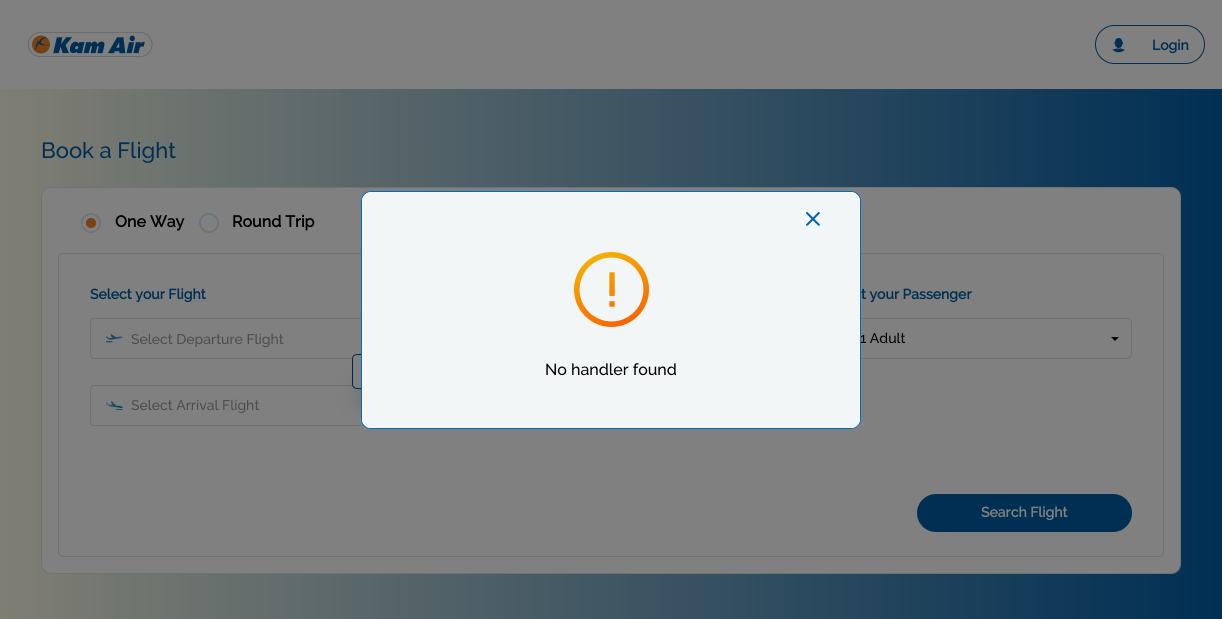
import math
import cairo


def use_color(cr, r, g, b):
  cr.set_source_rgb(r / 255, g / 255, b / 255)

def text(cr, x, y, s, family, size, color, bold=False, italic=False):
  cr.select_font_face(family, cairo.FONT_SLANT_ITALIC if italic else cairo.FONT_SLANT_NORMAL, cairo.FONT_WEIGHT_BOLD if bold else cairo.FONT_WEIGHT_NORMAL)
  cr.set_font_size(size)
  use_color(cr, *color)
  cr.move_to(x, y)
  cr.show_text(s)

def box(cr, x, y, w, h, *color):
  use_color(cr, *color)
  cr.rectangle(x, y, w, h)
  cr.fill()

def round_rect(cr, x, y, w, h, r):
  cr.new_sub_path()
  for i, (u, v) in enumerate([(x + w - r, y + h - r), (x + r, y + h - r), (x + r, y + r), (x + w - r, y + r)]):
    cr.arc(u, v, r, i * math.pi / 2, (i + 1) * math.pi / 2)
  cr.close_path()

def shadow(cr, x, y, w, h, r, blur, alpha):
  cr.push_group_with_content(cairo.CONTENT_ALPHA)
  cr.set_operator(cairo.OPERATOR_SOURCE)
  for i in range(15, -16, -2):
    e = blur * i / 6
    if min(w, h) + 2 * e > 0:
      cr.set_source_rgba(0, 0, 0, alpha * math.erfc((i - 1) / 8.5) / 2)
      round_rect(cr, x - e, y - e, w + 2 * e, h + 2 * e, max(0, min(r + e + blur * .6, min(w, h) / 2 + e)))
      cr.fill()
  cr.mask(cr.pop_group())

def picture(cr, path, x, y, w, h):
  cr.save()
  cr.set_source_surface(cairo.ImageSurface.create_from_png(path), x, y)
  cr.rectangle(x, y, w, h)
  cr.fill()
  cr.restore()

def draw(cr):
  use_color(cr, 255, 255, 255)
  cr.paint()
  gradient = cairo.LinearGradient(0, 310, 1222, 309)
  gradient.add_color_stop_rgba(0, 0.498, 0.494, 0.451, 1)
  gradient.add_color_stop_rgba(1, 0, 0.184, 0.329, 1)
  cr.set_source(gradient)
  cr.rectangle(0, 89, 1222, 530)
  cr.fill()
  box(cr, 0, 0, 1222, 89, 128, 128, 128)
  picture(cr, "img_01.png", 28, 32, 125, 25)
  round_rect(cr, 1095.5, 25.5, 109, 38, 19)
  use_color(cr, 0, 47, 84)
  cr.set_line_width(1)
  cr.stroke()
  picture(cr, "img_02.png", 1112, 38, 13, 15)
  use_color(cr, 128, 128, 128)
  round_rect(cr, 41.5, 187.5, 1139, 386, 9.5)
  cr.fill_preserve()
  use_color(cr, 111, 115, 116)
  cr.stroke()
  cr.arc(91, 223, 9, 0, 2 * math.pi)
  use_color(cr, 103, 118, 123)
  cr.set_line_width(2)
  cr.stroke()
  use_color(cr, 128, 128, 128)
  cr.arc(91, 223, 8, 0, 2 * math.pi)
  cr.fill()
  use_color(cr, 123, 65, 16)
  cr.arc(91, 223, 5, 0, 2 * math.pi)
  cr.fill()
  cr.arc(209, 223, 9, 0, 2 * math.pi)
  use_color(cr, 103, 118, 123)
  cr.stroke()
  use_color(cr, 128, 128, 128)
  cr.arc(209, 223, 8, 0, 2 * math.pi)
  cr.fill()
  round_rect(cr, 58.5, 253.5, 1105, 303, 4.5)
  use_color(cr, 111, 115, 116)
  cr.set_line_width(1)
  cr.stroke()
  round_rect(cr, 90.5, 318.5, 306, 40, 3.5)
  cr.stroke()
  picture(cr, "img_03.png", 106, 334, 17, 9)
  round_rect(cr, 90.5, 385.5, 306, 40, 3.5)
  cr.stroke()
  use_color(cr, 62, 74, 82)
  shadow(cr, 358, 382, 23, 23, 0, 9.5, 0.26)
  use_color(cr, 128, 128, 128)
  round_rect(cr, 352.5, 354.5, 34, 34, 4.5)
  cr.fill_preserve()
  use_color(cr, 2, 39, 81)
  cr.stroke()
  picture(cr, "img_04.png", 106, 401, 17, 9)
  round_rect(cr, 825.5, 318.5, 306, 40, 4.5)
  use_color(cr, 111, 115, 116)
  cr.stroke()
  use_color(cr, 0, 0, 0)
  cr.new_path()
  cr.move_to(1111, 337)
  cr.line_to(1119, 337)
  cr.line_to(1115, 341)
  cr.close_path()
  cr.fill()
  use_color(cr, 0, 47, 84)
  round_rect(cr, 917, 494, 215, 38, 19)
  cr.fill()
  text(cr, 1152, 50, "Login", "Raleway", 14, (0, 47, 84), bold=True)
  text(cr, 41, 158, "Book a Flight", "Raleway Medium", 22, (0, 47, 84))
  text(cr, 115, 227, "One Way", "Raleway", 16, (0, 0, 0), bold=True)
  text(cr, 232, 227, "Round Trip", "Raleway", 16, (0, 0, 0), bold=True)
  text(cr, 90, 299, "Select your Flight", "Raleway", 14, (0, 47, 84), bold=True)
  text(cr, 131, 344, "Select Departure Flight", "Raleway Medium", 14, (77, 77, 77))
  text(cr, 131, 410, "Select Arrival Flight", "Raleway Medium", 14, (77, 77, 77))
  text(cr, 861, 299, "t your Passenger", "Raleway", 14, (0, 47, 84), bold=True)
  text(cr, 860, 343, "1 Adult", "Raleway Medium", 14, (0, 0, 0))
  text(cr, 981, 517, "Search Flight", "Raleway", 14, (128, 128, 128), bold=True)
  use_color(cr, 255, 255, 255)
  round_rect(cr, 361.5, 191.5, 499, 237, 9.5)
  cr.fill_preserve()
  use_color(cr, 0, 111, 186)
  cr.stroke()
  cr.save()
  round_rect(cr, 362, 192, 498, 236, 9)
  cr.clip()
  use_color(cr, 243, 246, 247)
  cr.new_path()
  cr.move_to(372, 192)
  cr.line_to(850, 192)
  cr.curve_to(855.5, 192, 860, 196.5, 860, 202)
  cr.line_to(860, 246)
  cr.line_to(362, 246)
  cr.line_to(362, 202)
  cr.curve_to(362, 196.5, 366.5, 192, 372, 192)
  cr.close_path()
  cr.fill()
  cr.restore()
  picture(cr, "img_05.png", 806, 212, 14, 14)
  use_color(cr, 243, 246, 247)
  cr.new_path()
  cr.move_to(362, 246)
  cr.line_to(860, 246)
  cr.line_to(860, 419)
  cr.curve_to(860, 424, 856, 428, 851, 428)
  cr.line_to(371, 428)
  cr.curve_to(366, 428, 362, 424, 362, 419)
  cr.close_path()
  cr.fill()
  picture(cr, "img_06.png", 574, 252, 75, 75)
  text(cr, 545, 375, "No handler found", "Raleway Medium", 16, (0, 0, 0))


surface = cairo.ImageSurface(cairo.FORMAT_RGB24, 1222, 619)
cr = cairo.Context(surface)
options = cairo.FontOptions()
options.set_hint_metrics(cairo.HINT_METRICS_OFF)
options.set_hint_style(cairo.HINT_STYLE_NONE)
cr.set_font_options(options)
cr.set_miter_limit(4)
draw(cr)
surface.write_to_png("out.png")
